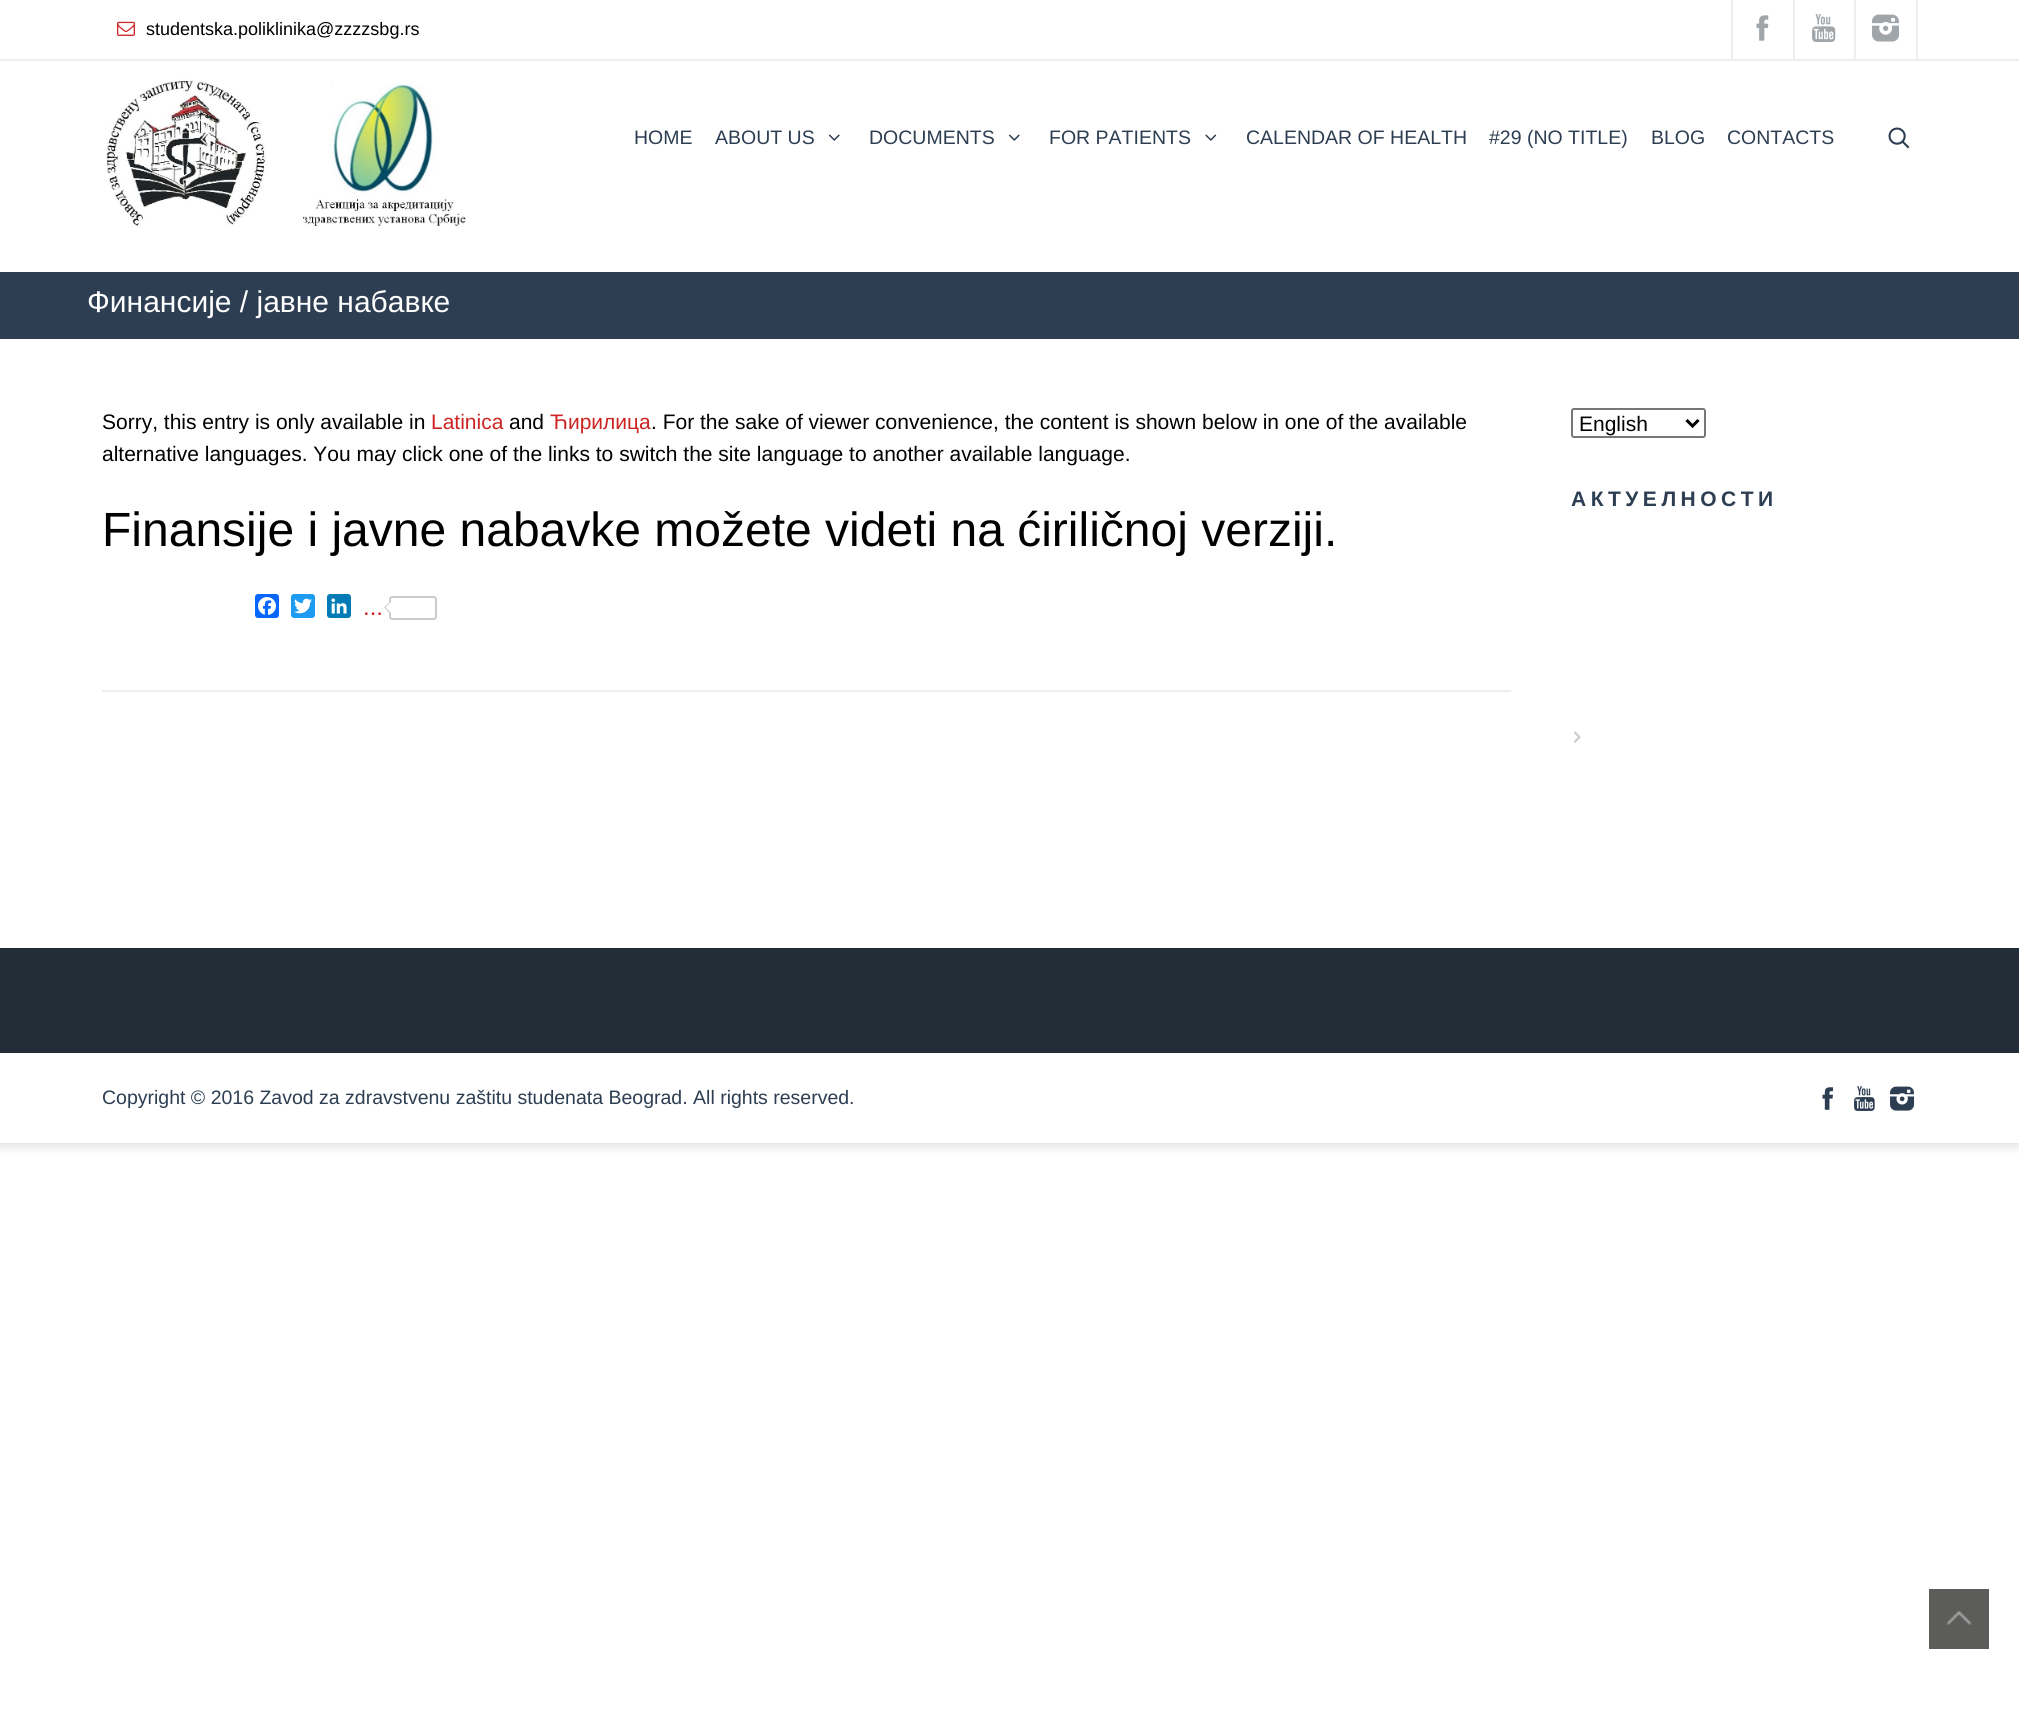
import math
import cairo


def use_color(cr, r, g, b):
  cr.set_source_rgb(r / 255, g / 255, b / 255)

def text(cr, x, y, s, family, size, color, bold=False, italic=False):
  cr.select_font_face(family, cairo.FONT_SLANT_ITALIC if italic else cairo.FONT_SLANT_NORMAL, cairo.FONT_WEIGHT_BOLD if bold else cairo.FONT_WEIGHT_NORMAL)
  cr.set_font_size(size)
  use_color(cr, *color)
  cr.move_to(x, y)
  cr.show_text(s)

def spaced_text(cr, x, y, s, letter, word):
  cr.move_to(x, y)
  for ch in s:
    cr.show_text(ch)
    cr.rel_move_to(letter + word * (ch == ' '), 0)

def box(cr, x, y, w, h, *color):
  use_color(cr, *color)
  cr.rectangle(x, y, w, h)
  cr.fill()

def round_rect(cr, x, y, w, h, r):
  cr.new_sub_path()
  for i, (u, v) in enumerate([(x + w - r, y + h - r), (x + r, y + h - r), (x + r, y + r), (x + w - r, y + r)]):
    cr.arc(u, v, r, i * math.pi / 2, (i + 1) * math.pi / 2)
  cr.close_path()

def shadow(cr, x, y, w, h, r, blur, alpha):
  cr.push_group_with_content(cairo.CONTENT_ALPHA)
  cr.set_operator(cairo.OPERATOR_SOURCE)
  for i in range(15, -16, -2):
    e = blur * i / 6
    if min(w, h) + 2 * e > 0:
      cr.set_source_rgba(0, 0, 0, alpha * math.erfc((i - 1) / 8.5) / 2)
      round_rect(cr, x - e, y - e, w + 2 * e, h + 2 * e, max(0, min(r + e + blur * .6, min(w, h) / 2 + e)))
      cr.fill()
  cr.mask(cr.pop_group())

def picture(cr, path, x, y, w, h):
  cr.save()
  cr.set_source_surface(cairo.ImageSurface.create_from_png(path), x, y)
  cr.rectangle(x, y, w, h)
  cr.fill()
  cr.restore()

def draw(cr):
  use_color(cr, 255, 255, 255)
  cr.paint()
  cr.save()
  cr.rectangle(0, 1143, 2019, 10)
  cr.clip()
  use_color(cr, 0, 0, 0)
  shadow(cr, 0, -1, 2019, 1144, 0, 7.5, 0.2)
  cr.restore()
  box(cr, 0, 59, 2019, 2, 236, 238, 240)
  picture(cr, "img_01.png", 117, 21, 18, 15)
  box(cr, 1731, 0, 2, 59, 236, 238, 240)
  picture(cr, "img_02.png", 1756, 15, 13, 26)
  box(cr, 1793, 0, 2, 59, 236, 238, 240)
  picture(cr, "img_03.png", 1812, 14, 24, 28)
  box(cr, 1916, 0, 2, 59, 236, 238, 240)
  box(cr, 1854, 0, 2, 59, 236, 238, 240)
  picture(cr, "img_04.png", 1872, 14, 27, 28)
  picture(cr, "img_05.png", 106, 79, 360, 148)
  picture(cr, "img_06.png", 828, 134, 12, 7)
  picture(cr, "img_06.png", 1008, 134, 12, 7)
  picture(cr, "img_07.png", 1205, 134, 12, 7)
  picture(cr, "img_08.png", 1888, 127, 22, 22)
  box(cr, 0, 272, 2019, 67, 45, 62, 82)
  box(cr, 102, 690, 1409, 2, 236, 238, 240)
  use_color(cr, 8, 102, 255)
  round_rect(cr, 255, 594, 24, 24, 3)
  cr.fill()
  picture(cr, "img_09.png", 258, 597, 18, 18)
  use_color(cr, 29, 155, 240)
  round_rect(cr, 291, 594, 24, 24, 3)
  cr.fill()
  picture(cr, "img_10.png", 294, 598, 18, 16)
  use_color(cr, 0, 123, 181)
  round_rect(cr, 327, 594, 24, 24, 3)
  cr.fill()
  picture(cr, "img_11.png", 331, 598, 16, 16)
  round_rect(cr, 390, 597, 46, 22, 2)
  use_color(cr, 204, 204, 204)
  cr.stroke()
  cr.new_path()
  cr.move_to(390, 601.5)
  cr.line_to(390, 613.5)
  cr.line_to(384, 607.5)
  cr.close_path()
  cr.fill()
  use_color(cr, 255, 255, 255)
  cr.new_path()
  cr.move_to(391.5, 601.5)
  cr.line_to(391.5, 613.5)
  cr.line_to(385.5, 607.5)
  cr.close_path()
  cr.fill()
  round_rect(cr, 1572, 409, 133, 28, 2)
  use_color(cr, 118, 118, 118)
  cr.stroke()
  cr.new_path()
  cr.move_to(1686.5, 420)
  cr.line_to(1692.5, 426)
  cr.line_to(1698.5, 420)
  use_color(cr, 0, 0, 0)
  cr.set_line_width(3)
  cr.stroke()
  picture(cr, "img_12.png", 1573, 731, 8, 12)
  box(cr, 0, 948, 2019, 105, 35, 45, 55)
  picture(cr, "img_13.png", 1822, 1087, 11, 23)
  picture(cr, "img_14.png", 1854, 1086, 21, 25)
  picture(cr, "img_15.png", 1890, 1086, 25, 25)
  box(cr, 1929, 1589, 60, 60, 92, 92, 91)
  picture(cr, "img_16.png", 1946, 1610, 26, 15)
  text(cr, 146, 35, "studentska.poliklinika@zzzzsbg.rs", "Liberation Sans", 18, (0, 0, 0))
  text(cr, 634, 144, "HOME", "Liberation Sans", 19.5, (45, 62, 82))
  text(cr, 715, 144, "ABOUT US", "Liberation Sans", 19.5, (45, 62, 82))
  text(cr, 869, 144, "DOCUMENTS", "Liberation Sans", 19.5, (45, 62, 82))
  text(cr, 1049, 144, "FOR PATIENTS", "Liberation Sans", 19.5, (45, 62, 82))
  cr.save()
  cr.rectangle(1247, 60, 220, 95)
  cr.clip()
  text(cr, 1246, 144, "CALENDAR ОF HEALTH", "Liberation Sans", 19.5, (45, 62, 82))
  cr.restore()
  text(cr, 1489, 144, "#29 (NO TITLE)", "Liberation Sans", 19.5, (45, 62, 82))
  text(cr, 1651, 144, "BLOG", "Liberation Sans", 19.5, (45, 62, 82))
  text(cr, 1727, 144, "CONTACTS", "Liberation Sans", 19.5, (45, 62, 82))
  text(cr, 87, 312, "Финансије / јавне набавке", "Liberation Sans", 30, (255, 255, 255))
  text(cr, 102, 429, "Sorry, this entry is only available in", "Liberation Sans", 21, (0, 0, 0))
  text(cr, 431, 429, "Latinica", "Liberation Sans", 21, (205, 35, 35))
  text(cr, 509, 429, "and", "Liberation Sans", 21, (0, 0, 0))
  text(cr, 550, 429, "Ћирилица", "Liberation Sans", 21, (205, 35, 35))
  text(cr, 651, 429, ". For the sake of viewer convenience, the content is shown below in one of the available", "Liberation Sans", 21, (0, 0, 0))
  text(cr, 102, 461, "alternative languages. You may click one of the links to switch the site language to another available language.", "Liberation Sans", 21, (0, 0, 0))
  text(cr, 102, 546, "Finansije i javne nabavke možete videti na ćiriličnoj verziji.", "Liberation Sans", 48, (0, 0, 0))
  text(cr, 363, 615, "...", "Liberation Sans", 24, (205, 35, 35))
  text(cr, 1579, 431, "English", "Liberation Sans", 21, (0, 0, 0))
  cr.select_font_face("Liberation Sans", cairo.FONT_SLANT_NORMAL, cairo.FONT_WEIGHT_BOLD)
  use_color(cr, 45, 62, 82)
  spaced_text(cr, 1571, 506, "АКТУЕЛНОСТИ", 4.5, 0)
  text(cr, 102, 1104, "Copyright © 2016 Zavod za zdravstvenu zaštitu studenata Beograd. All rights reserved.", "Liberation Sans", 19.5, (45, 62, 82))


surface = cairo.ImageSurface(cairo.FORMAT_RGB24, 2019, 1732)
cr = cairo.Context(surface)
options = cairo.FontOptions()
options.set_hint_metrics(cairo.HINT_METRICS_OFF)
options.set_hint_style(cairo.HINT_STYLE_NONE)
cr.set_font_options(options)
cr.set_miter_limit(4)
draw(cr)
surface.write_to_png("out.png")
